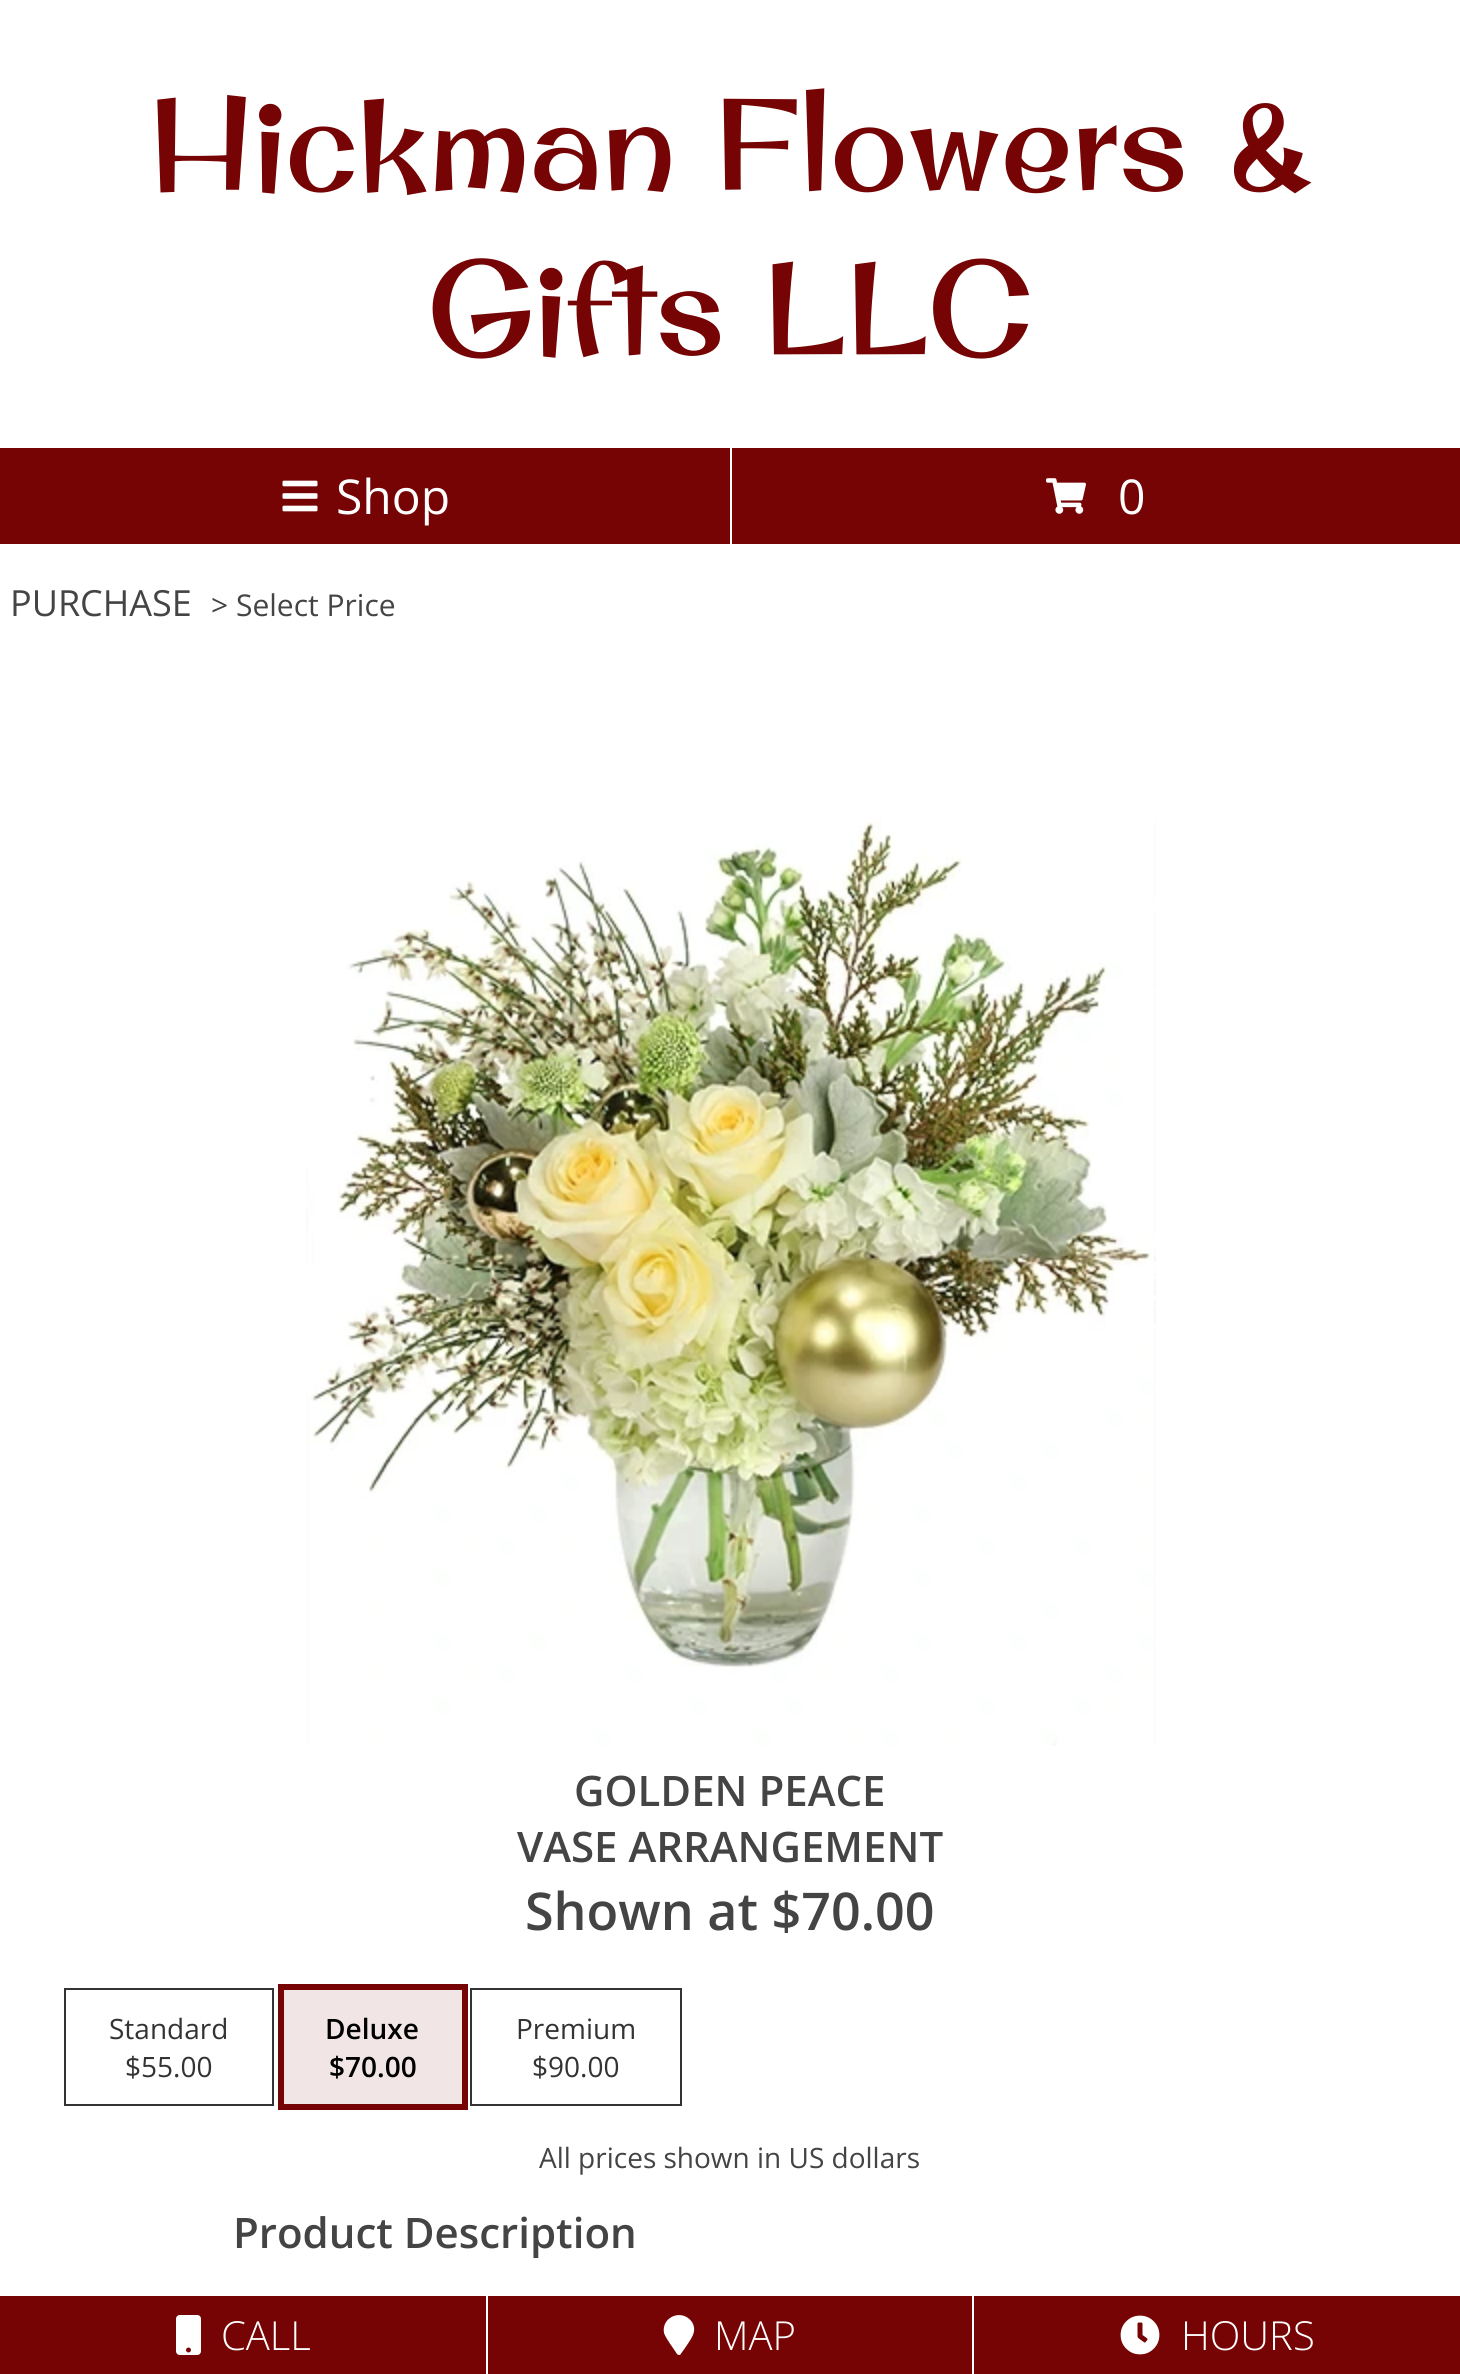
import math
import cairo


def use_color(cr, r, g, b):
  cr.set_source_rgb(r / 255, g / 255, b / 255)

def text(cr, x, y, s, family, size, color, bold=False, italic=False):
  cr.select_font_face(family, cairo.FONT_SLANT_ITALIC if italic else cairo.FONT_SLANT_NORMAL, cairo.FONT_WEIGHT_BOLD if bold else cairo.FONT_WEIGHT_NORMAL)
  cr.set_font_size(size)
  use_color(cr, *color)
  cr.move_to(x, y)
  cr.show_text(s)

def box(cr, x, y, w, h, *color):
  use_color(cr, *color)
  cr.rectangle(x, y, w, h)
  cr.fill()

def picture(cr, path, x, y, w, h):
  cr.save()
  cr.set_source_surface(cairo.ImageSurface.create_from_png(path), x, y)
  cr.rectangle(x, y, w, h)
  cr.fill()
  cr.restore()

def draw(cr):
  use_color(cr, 255, 255, 255)
  cr.paint()
  box(cr, 0, 448, 730, 96, 118, 4, 4)
  picture(cr, "img_01.png", 282, 480, 36, 32)
  box(cr, 732, 448, 728, 96, 118, 4, 4)
  picture(cr, "img_02.png", 1046, 478, 40, 36)
  picture(cr, "img_03.png", 306, 818, 850, 928)
  cr.rectangle(65, 1989, 208, 116)
  use_color(cr, 51, 51, 51)
  cr.stroke()
  cr.rectangle(281, 1987, 184, 120)
  use_color(cr, 118, 4, 4)
  cr.set_line_width(6)
  cr.stroke()
  box(cr, 284, 1990, 178, 114, 241, 229, 229)
  cr.rectangle(471, 1989, 210, 116)
  use_color(cr, 51, 51, 51)
  cr.set_line_width(2)
  cr.stroke()
  box(cr, 0, 2296, 486, 78, 118, 4, 4)
  picture(cr, "img_04.png", 176, 2315, 25, 40)
  box(cr, 488, 2296, 484, 78, 118, 4, 4)
  use_color(cr, 255, 255, 255)
  cr.new_path()
  cr.move_to(677, 2354)
  cr.curve_to(674, 2349, 666, 2339, 664, 2333)
  cr.curve_to(661, 2317, 682, 2308, 692, 2322)
  cr.curve_to(698, 2332, 690, 2340, 685, 2348)
  cr.line_to(680, 2355)
  cr.curve_to(679, 2355, 678, 2355, 677, 2354)
  cr.close_path()
  cr.fill()
  box(cr, 974, 2296, 486, 78, 118, 4, 4)
  picture(cr, "img_05.png", 1120, 2315, 40, 40)
  text(cr, 148, 190, "Hickman Flowers &", "Original Surfer", 130, (118, 4, 4))
  text(cr, 427, 354, "Gifts LLC", "Original Surfer", 130, (118, 4, 4))
  text(cr, 336, 514, "Shop", "Open Sans", 48, (255, 255, 255))
  text(cr, 1118, 514, "0", "Open Sans", 48, (255, 255, 255))
  text(cr, 10, 616, "PURCHASE", "Open Sans", 36, (68, 68, 68))
  text(cr, 211, 616, "> Select Price", "Open Sans", 30, (68, 68, 68))
  text(cr, 574, 1806, "GOLDEN PEACE", "Open Sans SemiBold", 42, (68, 68, 68))
  text(cr, 517, 1862, "VASE ARRANGEMENT", "Open Sans SemiBold", 42, (68, 68, 68))
  text(cr, 525, 1930, "Shown at $70.00", "Open Sans SemiBold", 52, (68, 68, 68))
  text(cr, 109, 2039, "Standard", "Open Sans", 28, (51, 51, 51))
  text(cr, 125, 2077, "$55.00", "Open Sans", 28, (51, 51, 51))
  text(cr, 325, 2039, "Deluxe", "Open Sans SemiBold", 28, (0, 0, 0))
  text(cr, 329, 2077, "$70.00", "Open Sans SemiBold", 28, (0, 0, 0))
  text(cr, 516, 2039, "Premium", "Open Sans", 28, (51, 51, 51))
  text(cr, 532, 2077, "$90.00", "Open Sans", 28, (51, 51, 51))
  text(cr, 539, 2168, "All prices shown in US dollars", "Open Sans", 28, (68, 68, 68))
  text(cr, 233, 2248, "Product Description", "Open Sans SemiBold", 42, (68, 68, 68))
  text(cr, 221, 2350, "CALL", "Open Sans Light", 40, (255, 255, 255))
  text(cr, 714, 2350, "MAP", "Open Sans Light", 40, (255, 255, 255))
  text(cr, 1181, 2350, "HOURS", "Open Sans Light", 40, (255, 255, 255))


surface = cairo.ImageSurface(cairo.FORMAT_RGB24, 1460, 2374)
cr = cairo.Context(surface)
options = cairo.FontOptions()
options.set_hint_metrics(cairo.HINT_METRICS_OFF)
options.set_hint_style(cairo.HINT_STYLE_NONE)
cr.set_font_options(options)
cr.set_miter_limit(4)
draw(cr)
surface.write_to_png("out.png")
